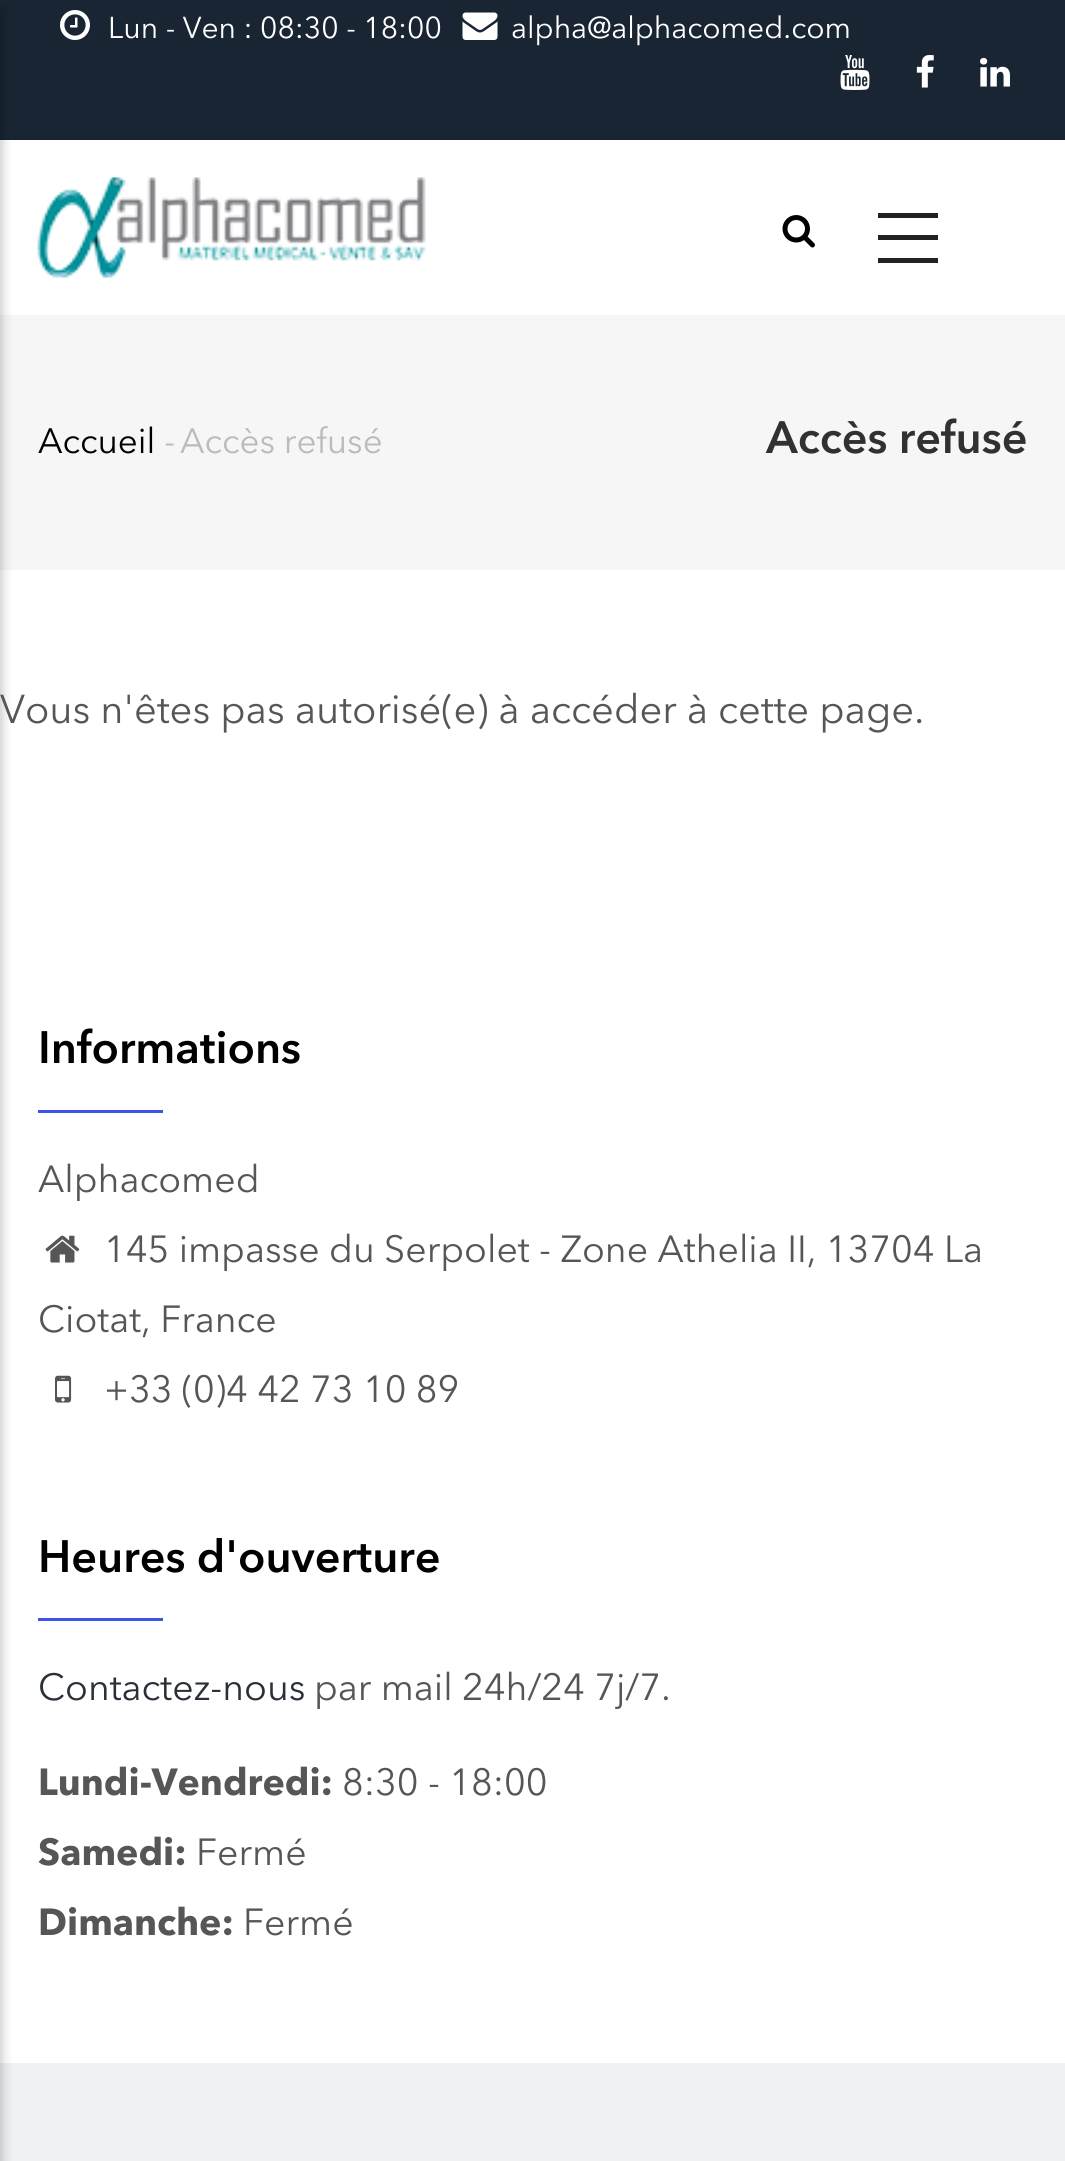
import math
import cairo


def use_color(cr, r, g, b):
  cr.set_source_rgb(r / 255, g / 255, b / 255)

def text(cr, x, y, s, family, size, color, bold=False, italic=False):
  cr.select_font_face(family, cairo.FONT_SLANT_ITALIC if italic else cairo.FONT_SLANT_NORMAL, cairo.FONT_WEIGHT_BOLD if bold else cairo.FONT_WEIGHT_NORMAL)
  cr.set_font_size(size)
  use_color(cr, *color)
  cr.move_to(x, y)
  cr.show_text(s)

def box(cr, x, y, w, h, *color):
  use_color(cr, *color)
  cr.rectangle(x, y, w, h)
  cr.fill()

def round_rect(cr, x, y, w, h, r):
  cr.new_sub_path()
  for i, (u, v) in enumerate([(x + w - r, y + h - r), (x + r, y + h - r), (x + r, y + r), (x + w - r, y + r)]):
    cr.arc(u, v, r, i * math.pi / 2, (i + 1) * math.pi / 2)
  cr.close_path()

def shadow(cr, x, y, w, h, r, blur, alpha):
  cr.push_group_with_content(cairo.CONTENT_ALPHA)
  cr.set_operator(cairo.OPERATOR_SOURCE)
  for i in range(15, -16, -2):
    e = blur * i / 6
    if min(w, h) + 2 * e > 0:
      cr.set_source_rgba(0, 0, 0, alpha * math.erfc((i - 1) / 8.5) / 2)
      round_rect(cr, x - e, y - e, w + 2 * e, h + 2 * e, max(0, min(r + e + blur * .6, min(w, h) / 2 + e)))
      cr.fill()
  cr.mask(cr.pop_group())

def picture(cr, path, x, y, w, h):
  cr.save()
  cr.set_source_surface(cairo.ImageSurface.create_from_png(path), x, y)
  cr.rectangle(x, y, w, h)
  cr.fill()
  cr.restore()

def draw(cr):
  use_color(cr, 255, 255, 255)
  cr.paint()
  box(cr, 0, 0, 1065, 140, 25, 37, 50)
  box(cr, 0, 315, 1065, 255, 246, 246, 246)
  box(cr, 0, 2063, 1065, 98, 238, 242, 244)
  use_color(cr, 0, 0, 0)
  shadow(cr, -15, 8, 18, 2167, 0, 5, 0.2)
  picture(cr, "img_01.png", 782, 215, 33, 33)
  box(cr, 878, 213, 60, 5, 34, 34, 34)
  box(cr, 878, 235, 60, 5, 34, 34, 34)
  box(cr, 878, 258, 60, 5, 34, 34, 34)
  picture(cr, "img_02.png", 37, 177, 389, 101)
  picture(cr, "img_03.png", 60, 10, 30, 30)
  picture(cr, "img_04.png", 462, 12, 36, 28)
  picture(cr, "img_05.png", 840, 55, 30, 35)
  picture(cr, "img_06.png", 916, 55, 18, 33)
  picture(cr, "img_07.png", 980, 57, 30, 30)
  box(cr, 38, 1110, 125, 3, 59, 85, 230)
  picture(cr, "img_08.png", 45, 1235, 35, 28)
  picture(cr, "img_09.png", 55, 1375, 17, 28)
  box(cr, 38, 1618, 125, 3, 59, 85, 230)
  text(cr, 108, 38, "Lun - Ven : 08:30 - 18:00", "Avenir Next", 30, (255, 255, 255))
  text(cr, 511, 38, "alpha@alphacomed.com", "Avenir Next", 30, (255, 255, 255))
  text(cr, 38, 453, "Accueil", "Avenir Next", 35, (0, 0, 0))
  text(cr, 164, 453, "-", "Avenir Next", 35, (187, 187, 187))
  text(cr, 180, 453, "Accès refusé", "Avenir Next", 35, (187, 187, 187))
  text(cr, 766, 453, "Accès refusé", "Avenir Next SemiBold", 45, (49, 49, 49))
  text(cr, 0, 723, "Vous n'êtes pas autorisé(e) à accéder à cette page.", "Avenir Next", 40, (86, 86, 86))
  text(cr, 38, 1063, "Informations", "Avenir Next SemiBold", 45, (0, 0, 0))
  text(cr, 38, 1192, "Alphacomed", "Avenir Next", 37.5, (86, 86, 86))
  text(cr, 104, 1262, "145 impasse du Serpolet - Zone Athelia II, 13704 La", "Avenir Next", 37.5, (86, 86, 86))
  text(cr, 38, 1332, "Ciotat, France", "Avenir Next", 37.5, (86, 86, 86))
  text(cr, 104, 1402, "+33 (0)4 42 73 10 89", "Avenir Next", 37.5, (86, 86, 86))
  text(cr, 38, 1572, "Heures d'ouverture", "Avenir Next SemiBold", 45, (0, 0, 0))
  text(cr, 38, 1700, "Contactez-nous", "Avenir Next", 37.5, (42, 48, 57))
  text(cr, 314, 1700, "par mail 24h/24 7j/7.", "Avenir Next", 37.5, (86, 86, 86))
  text(cr, 38, 1795, "Lundi-Vendredi:", "Avenir Next", 37.5, (86, 86, 86), bold=True)
  text(cr, 342, 1795, "8:30 - 18:00", "Avenir Next", 37.5, (86, 86, 86))
  text(cr, 38, 1865, "Samedi:", "Avenir Next", 37.5, (86, 86, 86), bold=True)
  text(cr, 196, 1865, "Fermé", "Avenir Next", 37.5, (86, 86, 86))
  text(cr, 38, 1935, "Dimanche:", "Avenir Next", 37.5, (86, 86, 86), bold=True)
  text(cr, 243, 1935, "Fermé", "Avenir Next", 37.5, (86, 86, 86))


surface = cairo.ImageSurface(cairo.FORMAT_RGB24, 1065, 2161)
cr = cairo.Context(surface)
options = cairo.FontOptions()
options.set_hint_metrics(cairo.HINT_METRICS_OFF)
options.set_hint_style(cairo.HINT_STYLE_NONE)
cr.set_font_options(options)
cr.set_miter_limit(4)
draw(cr)
surface.write_to_png("out.png")
